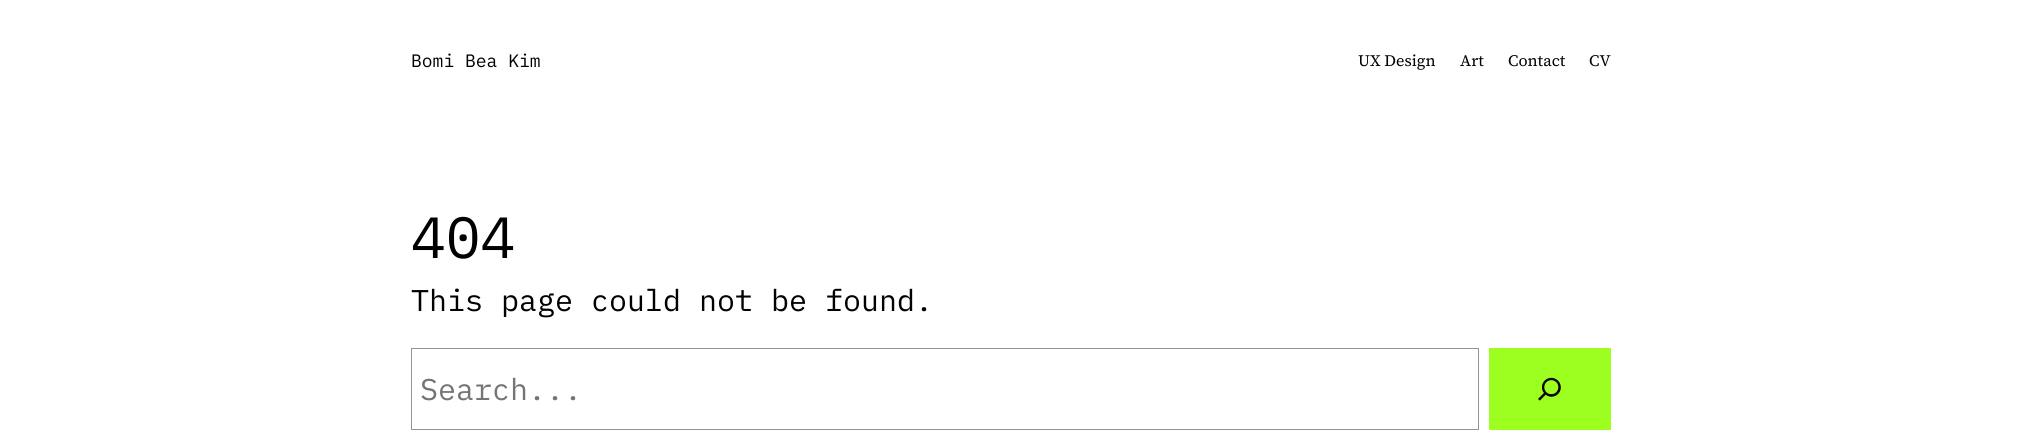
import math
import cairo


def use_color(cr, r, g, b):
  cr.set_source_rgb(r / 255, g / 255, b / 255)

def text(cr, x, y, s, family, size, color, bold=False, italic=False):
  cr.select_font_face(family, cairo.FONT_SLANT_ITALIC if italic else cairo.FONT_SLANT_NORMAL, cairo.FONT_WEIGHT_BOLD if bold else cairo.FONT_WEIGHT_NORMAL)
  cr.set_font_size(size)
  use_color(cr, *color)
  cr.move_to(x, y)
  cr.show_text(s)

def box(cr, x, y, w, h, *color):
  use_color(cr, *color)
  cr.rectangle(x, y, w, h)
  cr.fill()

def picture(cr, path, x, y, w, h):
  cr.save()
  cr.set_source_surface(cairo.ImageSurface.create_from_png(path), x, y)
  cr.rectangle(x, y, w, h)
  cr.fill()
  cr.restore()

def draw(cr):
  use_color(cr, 255, 255, 255)
  cr.paint()
  cr.rectangle(411.5, 348.5, 1067, 81)
  use_color(cr, 148, 148, 148)
  cr.set_line_width(1)
  cr.stroke()
  box(cr, 1489, 348, 122, 82, 157, 255, 32)
  picture(cr, "img_01.png", 1538, 377, 23, 24)
  text(cr, 411, 67, "Bomi Bea Kim", "IBM Plex Mono", 18, (0, 0, 0))
  text(cr, 1358, 66, "UX Design", "Source Serif 4", 16, (0, 0, 0))
  text(cr, 1460, 66, "Art", "Source Serif 4", 16, (0, 0, 0))
  text(cr, 1508, 66, "Contact", "Source Serif 4", 16, (0, 0, 0))
  text(cr, 1589, 66, "CV", "Source Serif 4", 16, (0, 0, 0))
  text(cr, 411, 258, "404", "IBM Plex Mono", 58, (0, 0, 0))
  text(cr, 411, 311, "This page could not be found.", "IBM Plex Mono", 30, (0, 0, 0))
  text(cr, 420, 400, "Search...", "IBM Plex Mono", 30, (117, 117, 117))


surface = cairo.ImageSurface(cairo.FORMAT_RGB24, 2021, 440)
cr = cairo.Context(surface)
options = cairo.FontOptions()
options.set_hint_metrics(cairo.HINT_METRICS_OFF)
options.set_hint_style(cairo.HINT_STYLE_NONE)
cr.set_font_options(options)
cr.set_miter_limit(4)
draw(cr)
surface.write_to_png("out.png")
